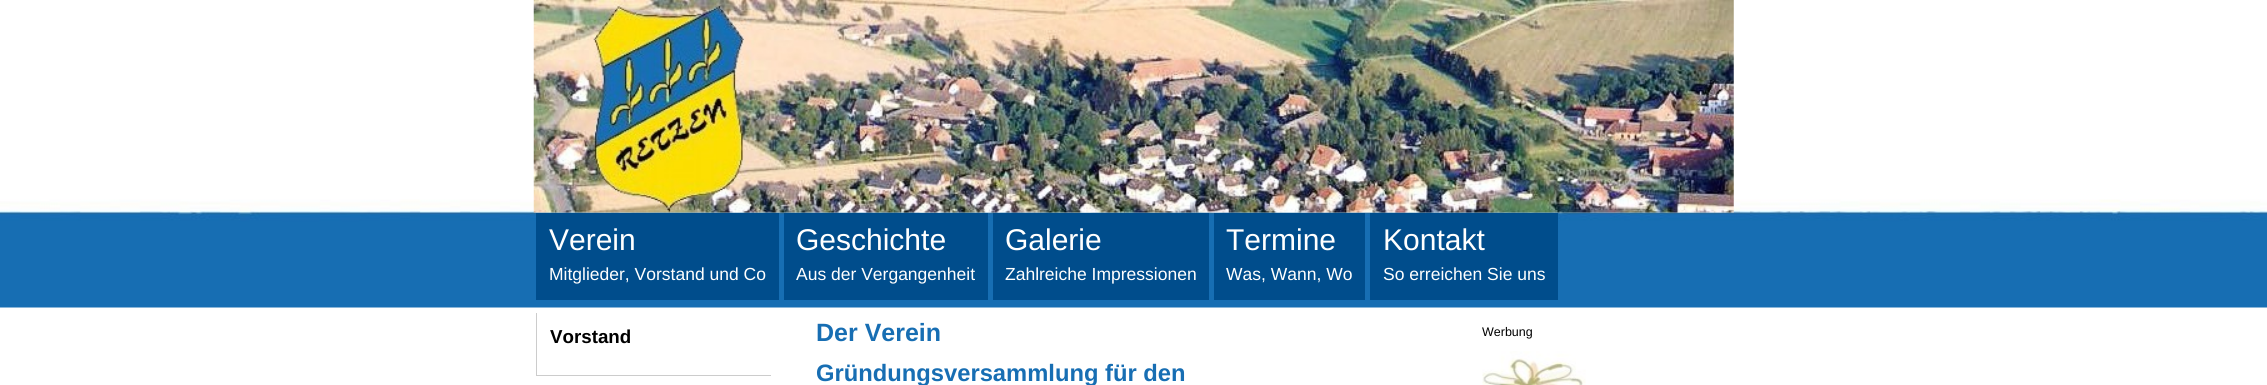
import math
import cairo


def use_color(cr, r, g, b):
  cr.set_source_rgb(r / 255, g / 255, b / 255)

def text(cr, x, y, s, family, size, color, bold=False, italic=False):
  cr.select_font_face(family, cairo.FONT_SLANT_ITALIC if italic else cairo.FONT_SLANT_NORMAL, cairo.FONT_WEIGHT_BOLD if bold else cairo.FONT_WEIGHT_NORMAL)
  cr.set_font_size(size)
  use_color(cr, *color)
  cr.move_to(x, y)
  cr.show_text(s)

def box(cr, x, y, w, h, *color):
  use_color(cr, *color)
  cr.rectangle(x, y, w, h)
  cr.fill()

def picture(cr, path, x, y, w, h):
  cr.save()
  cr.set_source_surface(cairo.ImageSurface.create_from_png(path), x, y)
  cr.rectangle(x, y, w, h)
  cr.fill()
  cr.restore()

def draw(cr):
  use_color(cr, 255, 255, 255)
  cr.paint()
  picture(cr, "img_01.png", 0, 199, 2267, 109)
  picture(cr, "img_02.png", 533, 0, 1201, 213)
  box(cr, 536, 213, 243, 87, 0, 77, 140)
  box(cr, 784, 213, 204, 87, 0, 77, 140)
  box(cr, 993, 213, 216, 87, 0, 77, 140)
  box(cr, 1214, 213, 151, 87, 0, 77, 140)
  box(cr, 1370, 213, 188, 87, 0, 77, 140)
  box(cr, 536, 375, 235, 1, 204, 204, 204)
  box(cr, 536, 313, 1, 63, 204, 204, 204)
  picture(cr, "img_03.png", 1482, 351, 104, 34)
  text(cr, 549, 250, "Verein", "Liberation Sans", 30, (255, 255, 255))
  text(cr, 549, 280, "Mitglieder, Vorstand und Co", "Liberation Sans", 17.5, (255, 255, 255))
  text(cr, 796, 250, "Geschichte", "Liberation Sans", 30, (255, 255, 255))
  text(cr, 796, 280, "Aus der Vergangenheit", "Liberation Sans", 17.5, (255, 255, 255))
  text(cr, 1005, 250, "Galerie", "Liberation Sans", 30, (255, 255, 255))
  text(cr, 1005, 280, "Zahlreiche Impressionen", "Liberation Sans", 17.5, (255, 255, 255))
  text(cr, 1226, 250, "Termine", "Liberation Sans", 30, (255, 255, 255))
  text(cr, 1226, 280, "Was, Wann, Wo", "Liberation Sans", 17.5, (255, 255, 255))
  text(cr, 1383, 250, "Kontakt", "Liberation Sans", 30, (255, 255, 255))
  text(cr, 1383, 280, "So erreichen Sie uns", "Liberation Sans", 17.5, (255, 255, 255))
  text(cr, 550, 343, "Vorstand", "Liberation Sans", 18.75, (0, 0, 0), bold=True)
  text(cr, 816, 341, "Der Verein", "Liberation Sans", 25, (23, 110, 179), bold=True)
  text(cr, 816, 381, "Gründungsversammlung für den", "Liberation Sans", 23.75, (23, 110, 179), bold=True)
  text(cr, 1482, 336, "Werbung", "Liberation Sans", 12.5, (0, 0, 0))


surface = cairo.ImageSurface(cairo.FORMAT_RGB24, 2267, 385)
cr = cairo.Context(surface)
options = cairo.FontOptions()
options.set_hint_metrics(cairo.HINT_METRICS_OFF)
options.set_hint_style(cairo.HINT_STYLE_NONE)
cr.set_font_options(options)
cr.set_miter_limit(4)
draw(cr)
surface.write_to_png("out.png")
